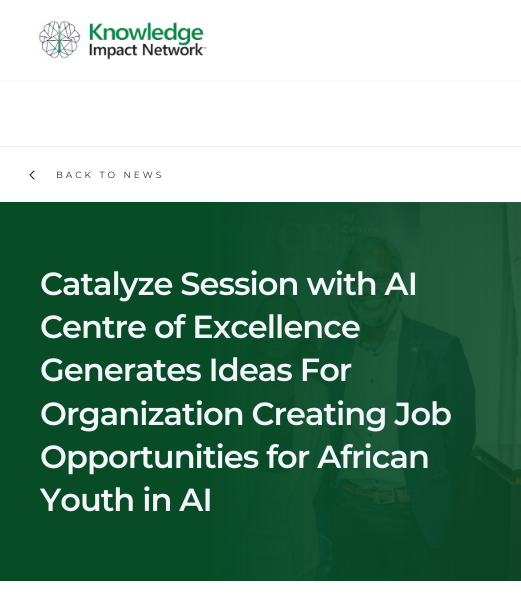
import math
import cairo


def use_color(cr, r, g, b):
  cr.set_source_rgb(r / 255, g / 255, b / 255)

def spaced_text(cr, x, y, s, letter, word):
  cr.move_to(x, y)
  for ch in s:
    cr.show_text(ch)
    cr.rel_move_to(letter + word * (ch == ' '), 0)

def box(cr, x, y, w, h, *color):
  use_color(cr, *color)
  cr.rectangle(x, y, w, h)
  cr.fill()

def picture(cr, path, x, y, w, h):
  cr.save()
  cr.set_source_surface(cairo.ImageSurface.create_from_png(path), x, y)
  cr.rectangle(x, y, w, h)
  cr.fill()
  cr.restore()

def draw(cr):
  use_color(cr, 255, 255, 255)
  cr.paint()
  box(cr, 0, 80, 521, 1, 245, 250, 252)
  picture(cr, "img_01.png", 37, 17, 170, 46)
  box(cr, 0, 146, 521, 1, 238, 239, 242)
  picture(cr, "img_02.png", 29, 170, 6, 10)
  picture(cr, "img_03.png", 220, 202, 301, 379)
  gradient = cairo.LinearGradient(0, 392, 521, 392)
  gradient.add_color_stop_rgba(0.4, 0.027, 0.294, 0.153, 1)
  gradient.add_color_stop_rgba(1, 0.027, 0.294, 0.153, 0.84)
  cr.set_source(gradient)
  cr.rectangle(0, 202, 521, 379)
  cr.fill()
  cr.select_font_face("Montserrat")
  cr.set_font_size(9)
  use_color(cr, 35, 42, 53)
  spaced_text(cr, 56, 178, "BACK TO NEWS", 3, 0)
  cr.select_font_face("Montserrat SemiBold")
  cr.set_font_size(32)
  use_color(cr, 243, 246, 249)
  spaced_text(cr, 40, 295, "Catalyze Session with AI", -0.95, 0)
  spaced_text(cr, 40, 338, "Centre of Excellence", -0.95, 0)
  spaced_text(cr, 40, 381, "Generates Ideas For", -0.95, 0)
  spaced_text(cr, 40, 425, "Organization Creating Job", -0.95, 0)
  spaced_text(cr, 40, 468, "Opportunities for African", -0.95, 0)
  spaced_text(cr, 40, 511, "Youth in AI", -0.95, 0)


surface = cairo.ImageSurface(cairo.FORMAT_RGB24, 521, 602)
cr = cairo.Context(surface)
options = cairo.FontOptions()
options.set_hint_metrics(cairo.HINT_METRICS_OFF)
options.set_hint_style(cairo.HINT_STYLE_NONE)
cr.set_font_options(options)
cr.set_miter_limit(4)
draw(cr)
surface.write_to_png("out.png")
